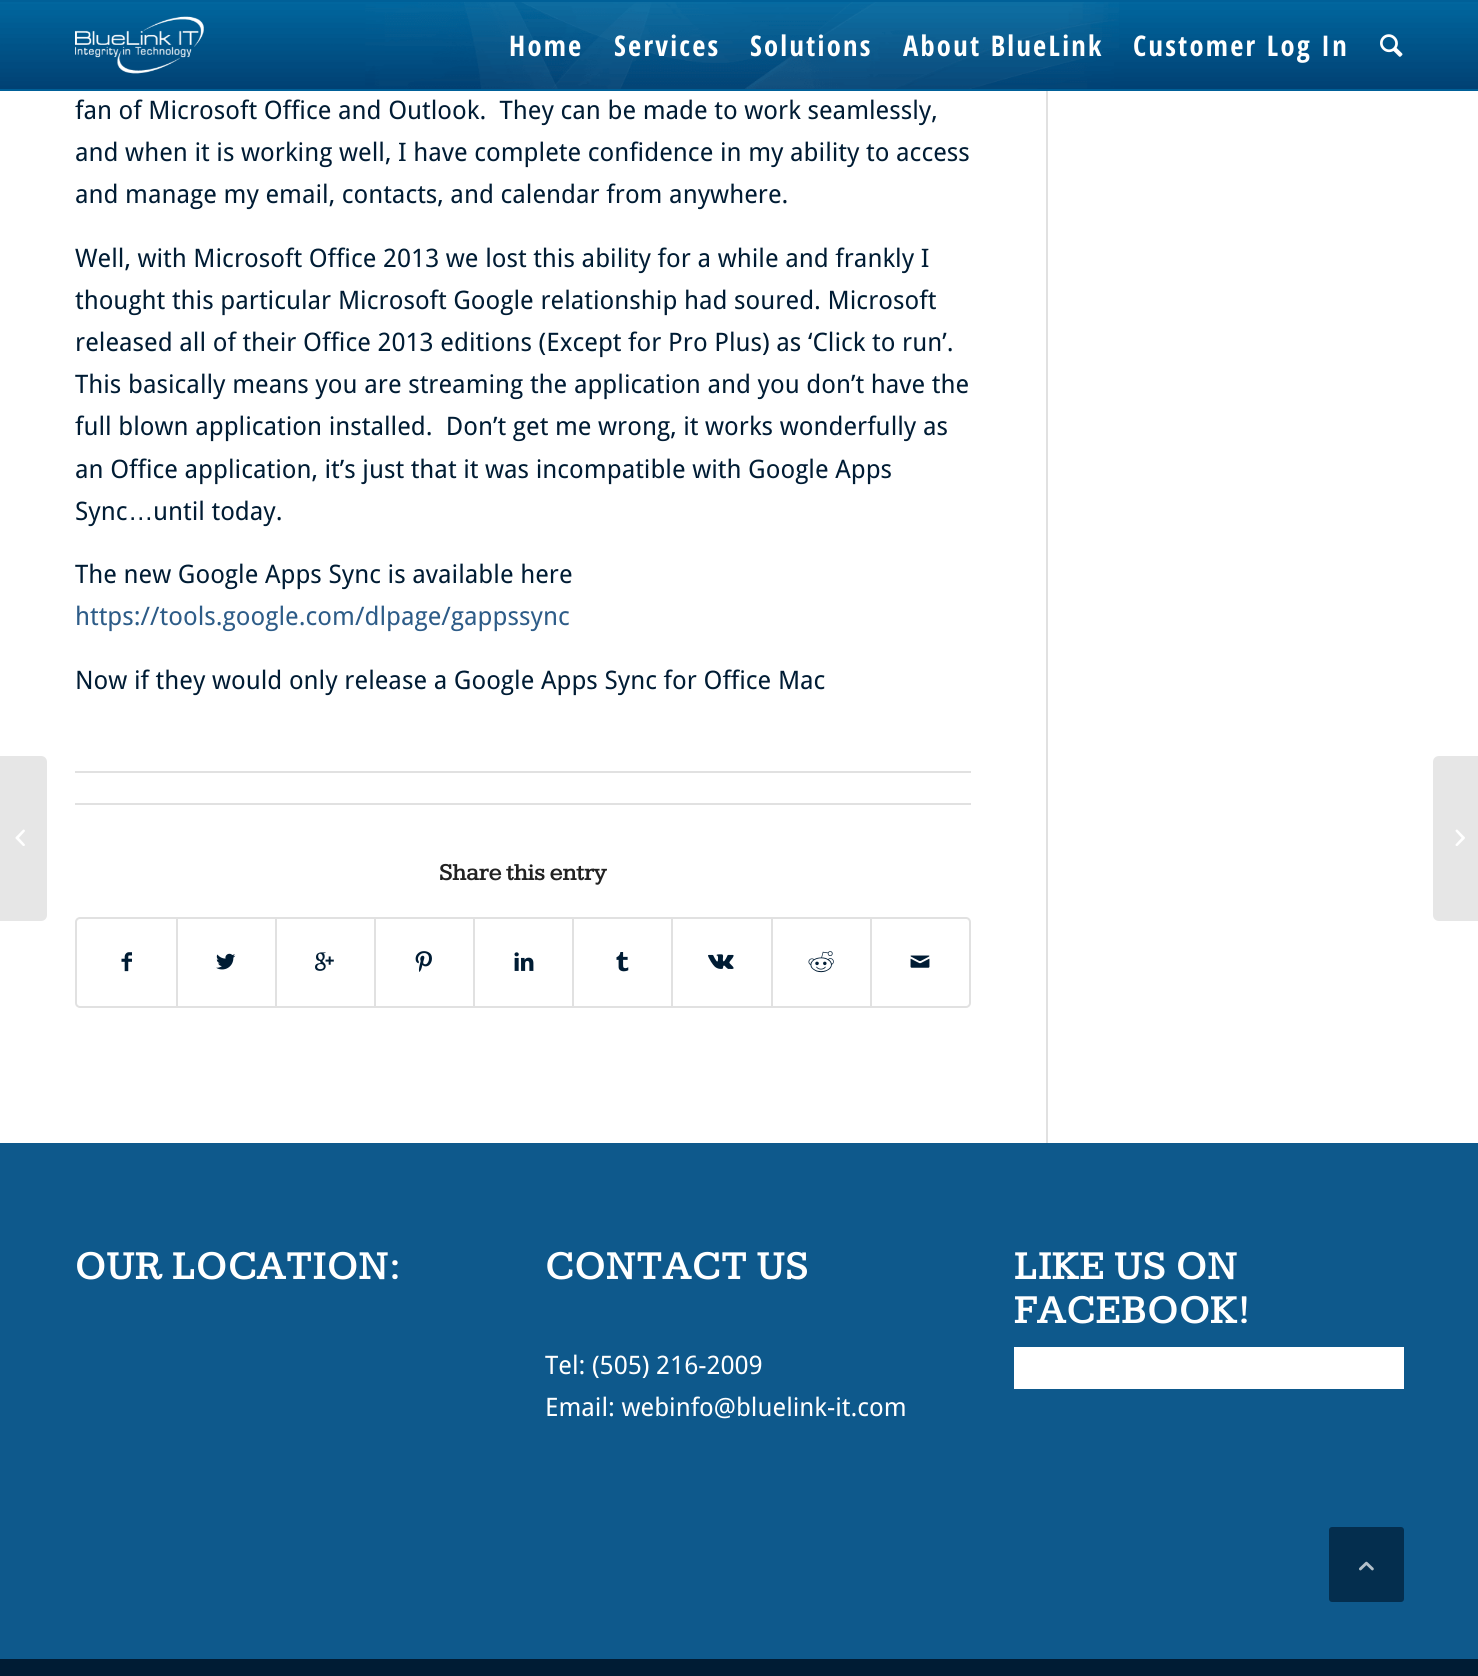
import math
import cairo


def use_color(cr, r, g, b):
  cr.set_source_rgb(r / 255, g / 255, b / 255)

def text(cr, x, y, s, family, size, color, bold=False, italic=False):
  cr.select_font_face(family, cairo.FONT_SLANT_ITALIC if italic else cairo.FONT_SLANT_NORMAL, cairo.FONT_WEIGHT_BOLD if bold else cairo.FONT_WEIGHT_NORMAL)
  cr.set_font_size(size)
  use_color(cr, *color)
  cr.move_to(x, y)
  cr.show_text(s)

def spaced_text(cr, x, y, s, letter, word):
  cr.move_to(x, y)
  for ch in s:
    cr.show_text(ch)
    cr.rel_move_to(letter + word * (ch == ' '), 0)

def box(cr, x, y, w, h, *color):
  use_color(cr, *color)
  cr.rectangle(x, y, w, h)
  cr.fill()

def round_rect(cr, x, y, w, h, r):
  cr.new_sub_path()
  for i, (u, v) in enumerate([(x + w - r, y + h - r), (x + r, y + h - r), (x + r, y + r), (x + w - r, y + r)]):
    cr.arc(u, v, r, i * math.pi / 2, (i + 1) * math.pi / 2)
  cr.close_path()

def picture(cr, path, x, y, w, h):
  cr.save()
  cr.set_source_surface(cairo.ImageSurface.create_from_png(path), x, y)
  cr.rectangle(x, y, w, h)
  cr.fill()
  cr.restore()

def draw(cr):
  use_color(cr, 255, 255, 255)
  cr.paint()
  picture(cr, "img_01.png", 0, 2, 1478, 87)
  box(cr, 0, 0, 1478, 2, 0, 96, 152)
  box(cr, 0, 89, 1478, 2, 0, 96, 152)
  picture(cr, "img_02.png", 75, 16, 129, 58)
  picture(cr, "img_03.png", 1380, 34, 23, 23)
  use_color(cr, 230, 230, 230)
  cr.new_path()
  cr.move_to(0, 756)
  cr.line_to(41, 756)
  cr.curve_to(44.5, 756, 47, 758.5, 47, 762)
  cr.line_to(47, 915)
  cr.curve_to(47, 918.5, 44.5, 921, 41, 921)
  cr.line_to(0, 921)
  cr.close_path()
  cr.fill()
  picture(cr, "img_04.png", 15, 829, 10, 17)
  box(cr, 1046, 91, 2, 1052, 225, 225, 225)
  box(cr, 75, 771, 896, 2, 225, 225, 225)
  box(cr, 75, 803, 896, 2, 225, 225, 225)
  round_rect(cr, 76, 918, 894, 89, 4)
  cr.stroke()
  picture(cr, "img_05.png", 121, 952, 11, 20)
  box(cr, 176, 918, 2, 89, 225, 225, 225)
  picture(cr, "img_06.png", 216, 953, 20, 17)
  box(cr, 275, 918, 2, 89, 225, 225, 225)
  picture(cr, "img_07.png", 315, 952, 19, 19)
  box(cr, 374, 918, 2, 89, 225, 225, 225)
  picture(cr, "img_08.png", 415, 951, 17, 21)
  box(cr, 473, 918, 2, 89, 225, 225, 225)
  picture(cr, "img_09.png", 514, 952, 20, 19)
  box(cr, 572, 918, 2, 89, 225, 225, 225)
  picture(cr, "img_10.png", 616, 952, 13, 20)
  box(cr, 671, 918, 2, 89, 225, 225, 225)
  picture(cr, "img_11.png", 708, 954, 26, 15)
  box(cr, 771, 918, 2, 89, 225, 225, 225)
  picture(cr, "img_12.png", 808, 951, 26, 22)
  box(cr, 870, 918, 2, 89, 225, 225, 225)
  picture(cr, "img_13.png", 910, 955, 20, 13)
  box(cr, 0, 1143, 1478, 516, 14, 89, 140)
  box(cr, 1014, 1347, 390, 42, 255, 255, 255)
  box(cr, 0, 1659, 1478, 17, 0, 28, 52)
  use_color(cr, 230, 230, 230)
  cr.new_path()
  cr.move_to(1439, 756)
  cr.line_to(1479, 756)
  cr.line_to(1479, 921)
  cr.line_to(1439, 921)
  cr.curve_to(1435.5, 921, 1433, 918.5, 1433, 915)
  cr.line_to(1433, 762)
  cr.curve_to(1433, 758.5, 1435.5, 756, 1439, 756)
  cr.close_path()
  cr.fill()
  picture(cr, "img_14.png", 1455, 829, 10, 17)
  use_color(cr, 4, 46, 78)
  round_rect(cr, 1330, 1528, 73, 73, 2)
  cr.fill_preserve()
  cr.stroke()
  picture(cr, "img_15.png", 1359, 1561, 15, 10)
  cr.select_font_face("Open Sans Condensed", cairo.FONT_SLANT_NORMAL, cairo.FONT_WEIGHT_BOLD)
  cr.set_font_size(28.5)
  use_color(cr, 255, 255, 255)
  spaced_text(cr, 509, 56, "Home", 2.25, 0)
  spaced_text(cr, 614, 56, "Services", 2.25, 0)
  spaced_text(cr, 750, 56, "Solutions", 2.25, 0)
  spaced_text(cr, 903, 56, "About BlueLink", 2.25, 0)
  spaced_text(cr, 1133, 56, "Customer Log In", 2.25, 0)
  text(cr, 75, 119, "fan of Microsoft Office and Outlook.  They can be made to work seamlessly,", "Droid Sans", 25.5, (0, 28, 52))
  text(cr, 75, 161, "and when it is working well, I have complete confidence in my ability to access", "Droid Sans", 25.5, (0, 28, 52))
  text(cr, 75, 203, "and manage my email, contacts, and calendar from anywhere.", "Droid Sans", 25.5, (0, 28, 52))
  text(cr, 75, 267, "Well, with Microsoft Office 2013 we lost this ability for a while and frankly I", "Droid Sans", 25.5, (0, 28, 52))
  text(cr, 75, 309, "thought this particular Microsoft Google relationship had soured. Microsoft", "Droid Sans", 25.5, (0, 28, 52))
  text(cr, 75, 351, "released all of their Office 2013 editions (Except for Pro Plus) as ‘Click to run’.", "Droid Sans", 25.5, (0, 28, 52))
  text(cr, 75, 393, "This basically means you are streaming the application and you don’t have the", "Droid Sans", 25.5, (0, 28, 52))
  text(cr, 75, 435, "full blown application installed.  Don’t get me wrong, it works wonderfully as", "Droid Sans", 25.5, (0, 28, 52))
  text(cr, 75, 478, "an Office application, it’s just that it was incompatible with Google Apps", "Droid Sans", 25.5, (0, 28, 52))
  text(cr, 75, 520, "Sync", "Droid Sans", 25.5, (0, 28, 52))
  text(cr, 128, 520, "…", "Liberation Sans", 25.5, (0, 28, 52))
  text(cr, 153, 520, "until today.", "Droid Sans", 25.5, (0, 28, 52))
  text(cr, 75, 583, "The new Google Apps Sync is available here", "Droid Sans", 25.5, (0, 28, 52))
  text(cr, 75, 625, "https://tools.google.com/dlpage/gappssync", "Droid Sans", 25.5, (45, 92, 136))
  text(cr, 75, 689, "Now if they would only release a Google Apps Sync for Office Mac", "Droid Sans", 25.5, (0, 28, 52))
  text(cr, 439, 880, "Share this entry", "Kameron", 24, (34, 34, 34), bold=True)
  cr.set_font_size(40.5)
  use_color(cr, 255, 255, 255)
  spaced_text(cr, 75, 1279, "OUR LOCATION:", 1.5, 0)
  spaced_text(cr, 545, 1279, "CONTACT US", 1.5, 0)
  text(cr, 545, 1374, "Tel: (505) 216-2009", "Droid Sans", 25.5, (255, 255, 255))
  text(cr, 545, 1416, "Email: webinfo@bluelink-it.com", "Droid Sans", 25.5, (255, 255, 255))
  cr.select_font_face("Kameron", cairo.FONT_SLANT_NORMAL, cairo.FONT_WEIGHT_BOLD)
  cr.set_font_size(40.5)
  spaced_text(cr, 1014, 1279, "LIKE US ON", 1.5, 0)
  spaced_text(cr, 1014, 1323, "FACEBOOK!", 1.5, 0)


surface = cairo.ImageSurface(cairo.FORMAT_RGB24, 1478, 1676)
cr = cairo.Context(surface)
options = cairo.FontOptions()
options.set_hint_metrics(cairo.HINT_METRICS_OFF)
options.set_hint_style(cairo.HINT_STYLE_NONE)
cr.set_font_options(options)
cr.set_miter_limit(4)
draw(cr)
surface.write_to_png("out.png")
